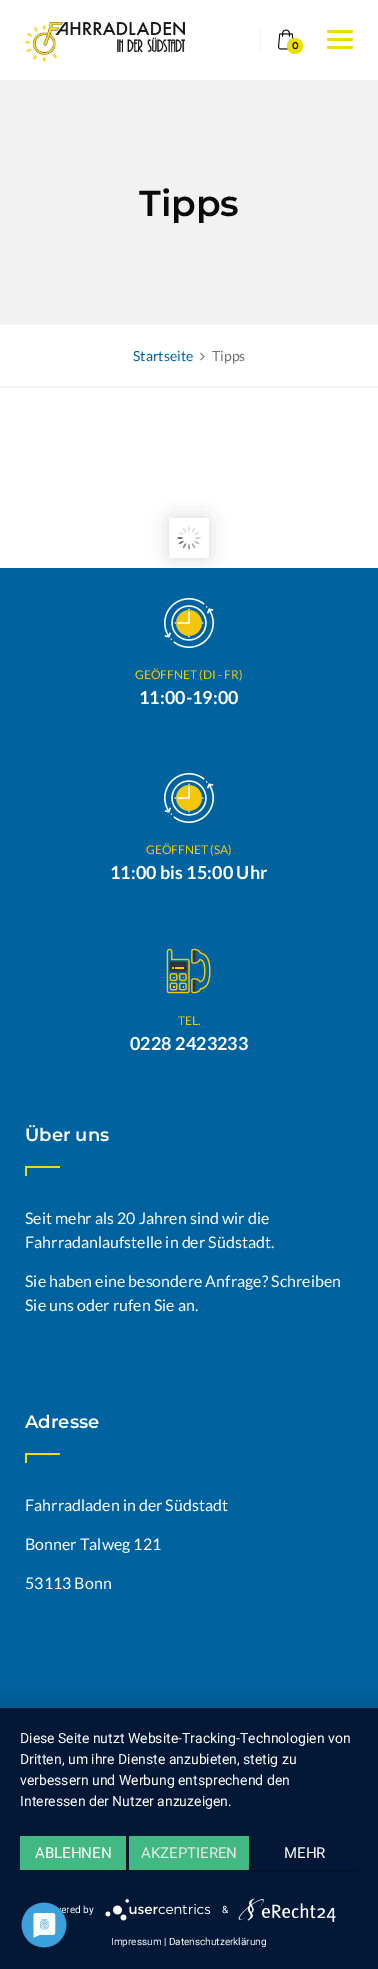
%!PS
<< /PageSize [378 1969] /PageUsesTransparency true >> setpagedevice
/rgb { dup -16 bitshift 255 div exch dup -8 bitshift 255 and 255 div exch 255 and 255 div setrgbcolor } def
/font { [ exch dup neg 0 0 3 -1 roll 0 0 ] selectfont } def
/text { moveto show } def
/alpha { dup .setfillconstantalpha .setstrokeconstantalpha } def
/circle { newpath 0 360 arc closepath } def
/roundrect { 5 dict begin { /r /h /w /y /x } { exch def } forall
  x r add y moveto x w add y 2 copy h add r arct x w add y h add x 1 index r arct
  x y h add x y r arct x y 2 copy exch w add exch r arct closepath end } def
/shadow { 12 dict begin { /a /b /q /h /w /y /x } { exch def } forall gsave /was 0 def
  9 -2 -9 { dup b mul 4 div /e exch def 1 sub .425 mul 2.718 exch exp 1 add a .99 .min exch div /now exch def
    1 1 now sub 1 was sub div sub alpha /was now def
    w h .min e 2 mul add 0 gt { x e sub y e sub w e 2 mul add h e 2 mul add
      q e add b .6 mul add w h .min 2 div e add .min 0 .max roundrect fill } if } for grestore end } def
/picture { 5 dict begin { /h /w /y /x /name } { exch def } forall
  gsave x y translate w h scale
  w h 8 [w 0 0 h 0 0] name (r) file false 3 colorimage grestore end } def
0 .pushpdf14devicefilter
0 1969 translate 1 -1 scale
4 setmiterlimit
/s1 { /Montserrat-SemiBold 10 font 16#0A0003 rgb } def
/s2 { /Montserrat-SemiBold 36 font 16#0A0A0A rgb } def
/s3 { /Lato-Regular 14 font 16#0063A0 rgb } def
/s4 { /Lato-Regular 14 font 16#707070 rgb } def
/s5 { /Lato-Regular 12 font 16#F4C70B rgb } def
/s6 { /Lato-Bold 18 font 16#FFFFFF rgb } def
/s7 { /Montserrat-SemiBold 18 font 16#FFFFFF rgb } def
/s8 { /Lato-Regular 16 font 16#FFFFFF rgb } def
/s9 { /Roboto-Regular 14 font 16#FFFFFF rgb } def
/s10 { /Roboto-Regular 15 font 16#FFFFFF rgb } def
/s11 { /Roboto-Regular 15 font 16#E6E6E6 rgb } def
/s12 { /Roboto-Regular 10 font 16#FFFFFF rgb } def
16#FFFFFF rgb
0 0 378 1969 rectfill
(pic1.raw) 25 22 160 40 picture
16#F2F2F2 rgb
260 28 1 24 rectfill
(pic2.raw) 278 29 16 21 picture
16#EDDE0B rgb
295 46 8 circle fill
s1
(0) 292 49 text
16#EDDE0B rgb
327 30 26 3 1.5 roundrect fill
327 38 26 3 1.5 roundrect fill
327 46 26 3 1.5 roundrect fill
16#F2F2F2 rgb
0 80 378 245 rectfill
s2
(Tipps) 139 216 text
16#F2F2F2 rgb
0 386 378 2 rectfill
s3
(Startseite) 133 361 text
(pic3.raw) 200 352 5 9 picture
s4
(Tipps) 212 361 text
16#000000 rgb
169 518 40 40 3 10 0.15 shadow
16#FFFFFF rgb
169 518 40 40 3 roundrect fill
(pic4.raw) 177 526 24 24 picture
16#0063A0 rgb
0 568 378 1140 rectfill
(pic5.raw) 164 598 50 50 picture
s5
(GEÖFFNET \(DI - FR\)) 135 679 text
s6
(11:00-19:00) 139 704 text
(pic5.raw) 164 773 50 50 picture
s5
(GEÖFFNET \(SA\)) 146 854 text
s6
(11:00 bis 15:00 Uhr) 110 879 text
(pic6.raw) 166 948 45 46 picture
s5
(TEL.) 178 1025 text
s6
(0228 2423233) 130 1050 text
s7
(Über uns) 25 1141 text
16#EDDE0B rgb
25 1166 35 2 rectfill
25 1166 2 10 rectfill
s8
(Seit mehr als 20 Jahren sind wir die) 25 1224 text
(Fahrradanlaufstelle in der Südstadt.) 25 1248 text
(Sie haben eine besondere Anfrage? Schreiben) 25 1287 text
(Sie uns oder rufen Sie an.) 25 1311 text
s7
(Adresse) 25 1428 text
16#EDDE0B rgb
25 1453 35 2 rectfill
25 1453 2 10 rectfill
s8
(Fahrradladen in der Südstadt) 25 1511 text
(Bonner Talweg 121) 25 1550 text
(53113 Bonn) 25 1589 text
16#000000 rgb
0 1714 378 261 0 18 0.3 shadow
16#021836 rgb
0 1708 378 261 rectfill
s9
(Diese Seite nutzt Website-Tracking-Technologien von) 20 1743 text
(Dritten, um ihre Dienste anzubieten, stetig zu) 20 1764 text
(verbessern und Werbung entsprechend den) 20 1785 text
(Interessen der Nutzer anzuzeigen.) 20 1806 text
gsave
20 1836 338 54 rectclip
16#000000 rgb
20 1837 106 34 0 2 0.4 shadow
grestore
16#42B983 rgb
20 1836 106 34 rectfill
s10
(ABLEHNEN) 35 1858 text
gsave
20 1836 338 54 rectclip
16#000000 rgb
129 1837 120 34 0 2 0.4 shadow
grestore
16#42B983 rgb
129 1836 120 34 rectfill
s11
(AKZEPTIEREN) 141 1858 text
gsave
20 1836 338 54 rectclip
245 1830 moveto 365 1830 lineto 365 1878 lineto 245 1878 lineto closepath 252 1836 moveto 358 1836 lineto 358 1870 lineto 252 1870 lineto closepath eoclip newpath
16#000000 rgb
252 1837 106 34 0 2 0.4 shadow
grestore
s10
(MEHR) 284 1858 text
s12
(ered by) 61 1913 text
(pic7.raw) 105 1899 106 22 picture
(&) 222 1913 text
(pic8.raw) 238 1898 98 24 picture
(Impressum | Datenschutzerklärung) 111 1945 text
(pic9.raw) 21 1902 46 46 picture
.poppdf14devicefilter showpage
